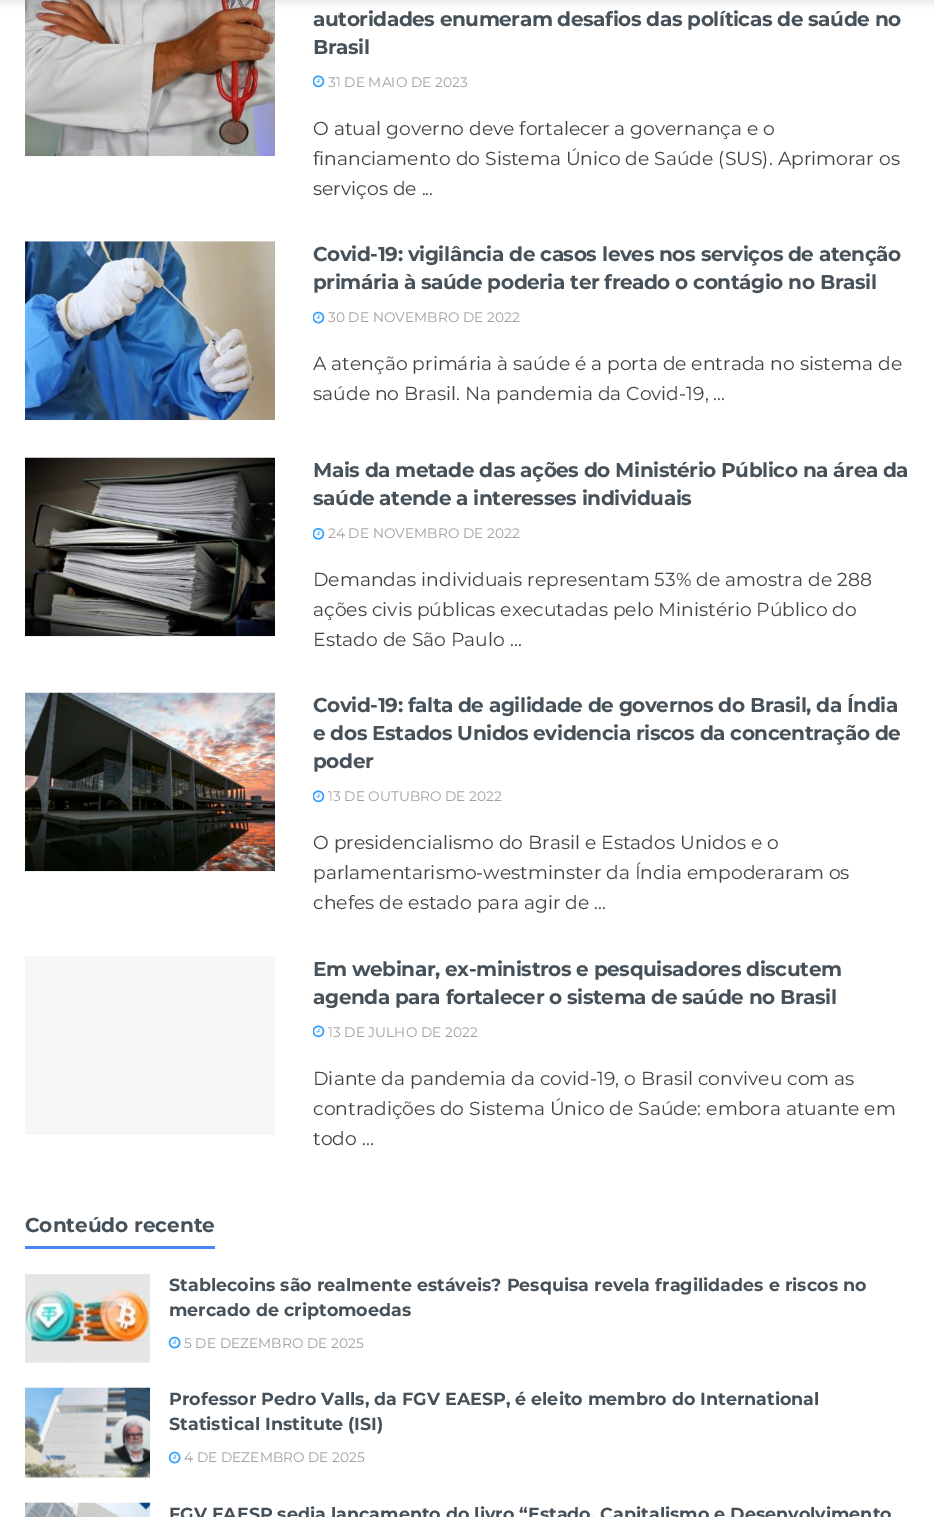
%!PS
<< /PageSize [934 1517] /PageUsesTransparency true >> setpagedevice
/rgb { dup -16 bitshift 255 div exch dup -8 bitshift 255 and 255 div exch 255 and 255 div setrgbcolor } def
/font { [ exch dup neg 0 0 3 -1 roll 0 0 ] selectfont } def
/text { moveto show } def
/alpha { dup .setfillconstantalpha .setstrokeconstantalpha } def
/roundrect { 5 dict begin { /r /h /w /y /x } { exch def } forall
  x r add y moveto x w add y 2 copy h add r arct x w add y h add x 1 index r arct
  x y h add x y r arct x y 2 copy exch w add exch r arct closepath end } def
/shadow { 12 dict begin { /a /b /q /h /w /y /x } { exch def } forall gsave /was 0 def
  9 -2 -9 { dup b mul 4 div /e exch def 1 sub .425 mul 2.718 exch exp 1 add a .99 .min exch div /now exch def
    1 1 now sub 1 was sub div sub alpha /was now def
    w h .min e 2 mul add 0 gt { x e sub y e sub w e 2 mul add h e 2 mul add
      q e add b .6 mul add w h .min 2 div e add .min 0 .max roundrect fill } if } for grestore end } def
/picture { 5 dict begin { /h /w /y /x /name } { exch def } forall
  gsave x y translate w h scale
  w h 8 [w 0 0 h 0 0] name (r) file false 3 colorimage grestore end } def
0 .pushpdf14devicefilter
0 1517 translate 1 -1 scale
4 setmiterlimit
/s1 { /Montserrat-Regular 13.75 font 16#A0A0A0 rgb } def
/s2 { /Montserrat-Regular 18.75 font 16#444444 rgb } def
/s3 { /Montserrat-Bold 20 font 16#47515A rgb } def
/s4 { /Montserrat-Bold 17.5 font 16#47515A rgb } def
16#FFFFFF rgb
0 0 934 1517 rectfill
(pic1.raw) 25 0 250 157 picture
16#000000 rgb
0 -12 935 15 0 4 0.1 shadow
/Montserrat-Bold 20 font
16#47515A rgb
313 26 moveto -0.4 0 (autoridades enumeram desafios das políticas de saúde no) ashow
313 54 moveto -0.4 0 (Brasil) ashow
(pic2.raw) 313 75 12 13 picture
s1
(31 DE MAIO DE 2023) 328 87 text
s2
(O atual governo deve fortalecer a governança e o) 313 135 text
(financiamento do Sistema Único de Saúde \(SUS\). Aprimorar os) 313 165 text
(serviços de ...) 313 195 text
16#F7F7F7 rgb
25 241 250 1 rectfill
(pic4.raw) 88 241 49 1 picture
(pic3.raw) 25 241 250 179 picture
/Montserrat-Bold 20 font
16#47515A rgb
313 261 moveto -0.4 0 (Covid-19: vigilância de casos leves nos serviços de atenção) ashow
313 289 moveto -0.4 0 (primária à saúde poderia ter freado o contágio no Brasil) ashow
(pic5.raw) 313 311 12 13 picture
s1
(30 DE NOVEMBRO DE 2022) 328 322 text
s2
(A atenção primária à saúde é a porta de entrada no sistema de) 313 370 text
(saúde no Brasil. Na pandemia da Covid-19, ...) 313 400 text
(pic7.raw) 88 457 49 1 picture
(pic6.raw) 25 457 250 180 picture
/Montserrat-Bold 20 font
16#47515A rgb
313 477 moveto -0.4 0 (Mais da metade das ações do Ministério Público na área da) ashow
313 505 moveto -0.4 0 (saúde atende a interesses individuais) ashow
(pic8.raw) 313 527 12 13 picture
s1
(24 DE NOVEMBRO DE 2022) 328 538 text
s2
(Demandas individuais representam 53% de amostra de 288) 313 586 text
(ações civis públicas executadas pelo Ministério Público do) 313 616 text
(Estado de São Paulo ...) 313 646 text
(pic7.raw) 88 692 49 1 picture
(pic9.raw) 25 692 250 180 picture
/Montserrat-Bold 20 font
16#47515A rgb
313 712 moveto -0.4 0 (Covid-19: falta de agilidade de governos do Brasil, da Índia) ashow
313 740 moveto -0.4 0 (e dos Estados Unidos evidencia riscos da concentração de) ashow
313 768 moveto -0.4 0 (poder) ashow
(pic2.raw) 313 790 12 13 picture
s1
(13 DE OUTUBRO DE 2022) 328 801 text
s2
(O presidencialismo do Brasil e Estados Unidos e o) 313 849 text
(parlamentarismo-westminster da Índia empoderaram os) 313 879 text
(chefes de estado para agir de ...) 313 909 text
16#F7F7F7 rgb
25 956 250 179 rectfill
/Montserrat-Bold 20 font
16#47515A rgb
313 976 moveto -0.4 0 (Em webinar, ex-ministros e pesquisadores discutem) ashow
313 1004 moveto -0.4 0 (agenda para fortalecer o sistema de saúde no Brasil) ashow
(pic2.raw) 313 1025 12 13 picture
s1
(13 DE JULHO DE 2022) 328 1037 text
s2
(Diante da pandemia da covid-19, o Brasil conviveu com as) 313 1085 text
(contradições do Sistema Único de Saúde: embora atuante em) 313 1115 text
(todo ...) 313 1145 text
16#4886FF rgb
25 1246 190 3 rectfill
s3
(Conteúdo recente) 25 1232 text
16#F7F7F7 rgb
25 1361 125 2 rectfill
(pic11.raw) 56 1361 25 2 picture
(pic10.raw) 25 1274 125 89 picture
s4
(Stablecoins são realmente estáveis? Pesquisa revela fragilidades e riscos no) 169 1291 text
(mercado de criptomoedas) 169 1316 text
(pic12.raw) 168 1336 13 13 picture
s1
(5 DE DEZEMBRO DE 2025) 184 1348 text
16#F7F7F7 rgb
25 1476 125 2 rectfill
(pic14.raw) 56 1387 25 91 picture
(pic13.raw) 25 1387 125 91 picture
s4
(Professor Pedro Valls, da FGV EAESP, é eleito membro do International) 169 1405 text
(Statistical Institute \(ISI\)) 169 1430 text
(pic12.raw) 168 1451 13 13 picture
s1
(4 DE DEZEMBRO DE 2025) 184 1462 text
(pic16.raw) 56 1502 25 1 picture
(pic15.raw) 25 1502 125 15 picture
s4
(FGV EAESP sedia lançamento do livro “Estado, Capitalismo e Desenvolvimento) 169 1520 text
.poppdf14devicefilter showpage
